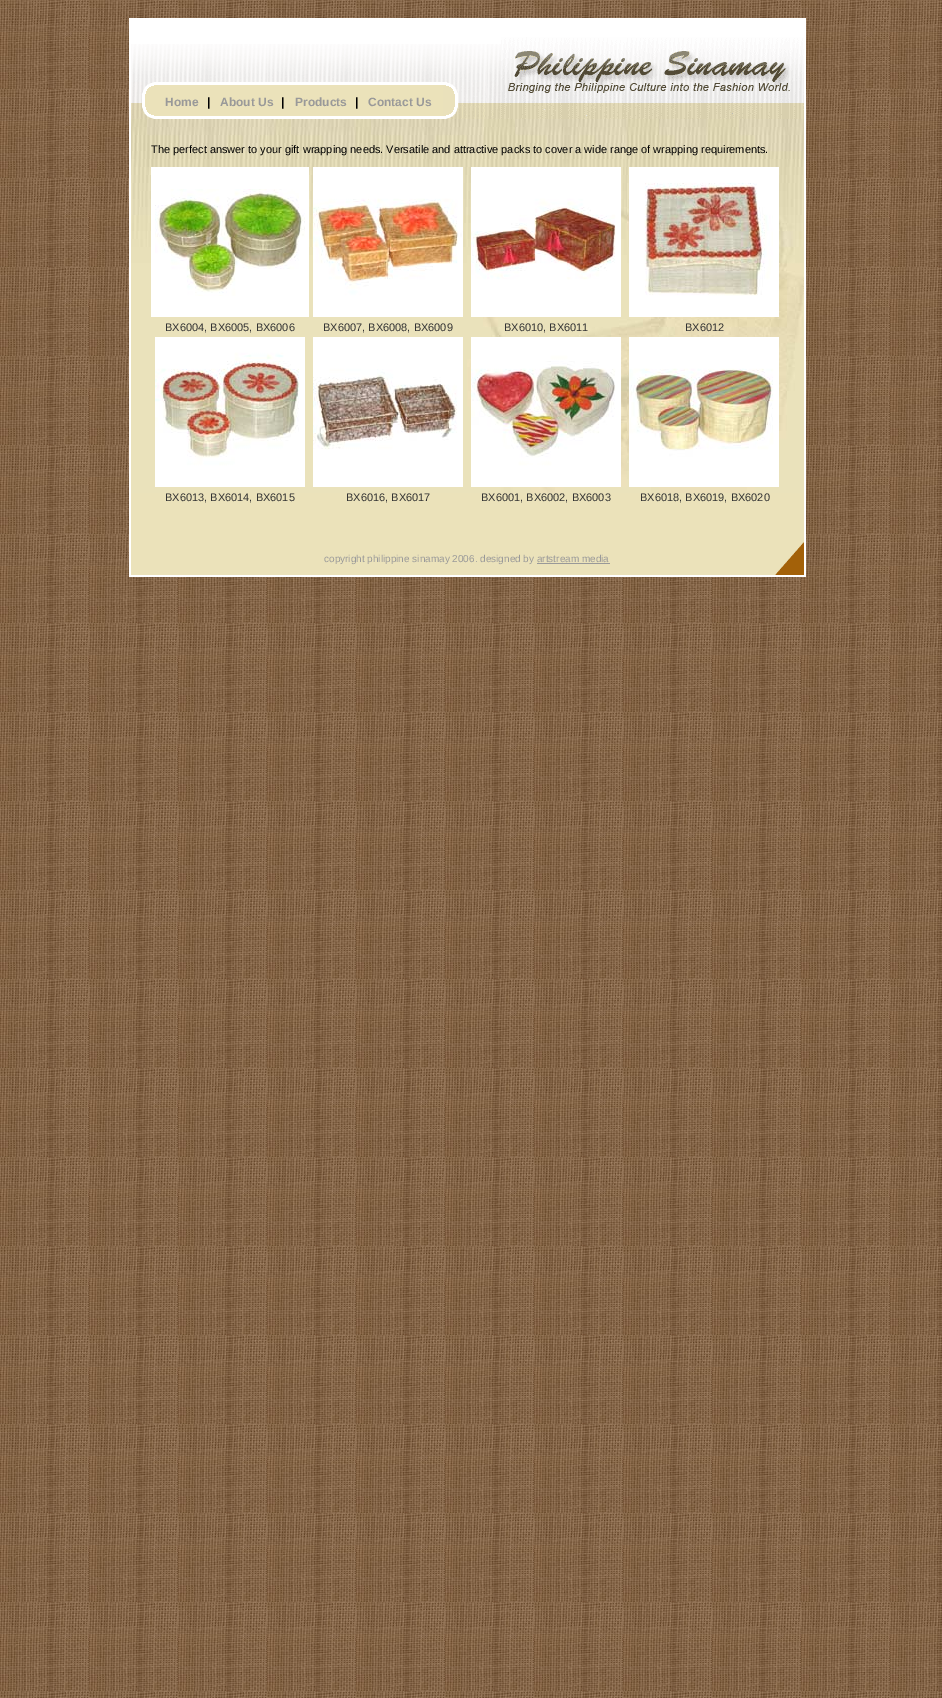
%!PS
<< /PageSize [942 1698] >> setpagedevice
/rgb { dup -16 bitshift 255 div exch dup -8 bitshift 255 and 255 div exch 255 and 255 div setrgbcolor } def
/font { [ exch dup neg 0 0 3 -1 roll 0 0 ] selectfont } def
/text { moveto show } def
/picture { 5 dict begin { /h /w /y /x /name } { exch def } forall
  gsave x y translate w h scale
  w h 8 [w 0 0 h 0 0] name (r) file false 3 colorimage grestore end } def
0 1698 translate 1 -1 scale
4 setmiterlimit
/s1 { /LiberationSans-Bold 12 font 16#999999 rgb } def
/s2 { /LiberationSans-Bold 12 font 16#000000 rgb } def
/s3 { /LiberationSans-Regular 11 font 16#000000 rgb } def
/s4 { /LiberationSans-Regular 11 font 16#333333 rgb } def
/s5 { /LiberationSans-Regular 10 font 16#999999 rgb } def
16#FFFFFF rgb
0 0 942 1698 rectfill
(pic1.raw) 0 0 942 1698 picture
129 18 677 559 rectfill
(pic2.raw) 131 44 370 38 picture
(pic3.raw) 501 37 303 82 picture
(pic4.raw) 131 82 11 37 picture
(pic5.raw) 142 82 13 37 picture
16#EBE2BA rgb
155 85 288 31 rectfill
s1
(Home) 165 106 text
s2
(|) 207 106 text
s1
(About Us) 220 106 text
s2
(|) 281 106 text
s1
(Products) 295 106 text
s2
(|) 355 106 text
s1
(Contact Us) 368 106 text
(pic6.raw) 443 82 58 37 picture
16#EBE2BA rgb
131 493 673 49 rectfill
(pic7.raw) 131 119 673 374 picture
s3
(The perfect answer to your gift wrapping needs. Versatile and attractive packs to cover a wide range of wrapping requirements.) 151 153 text
16#FFFFFF rgb
151 167 158 150 rectfill
(pic8.raw) 155 189 150 107 picture
(pic9.raw) 313 167 150 150 picture
(pic10.raw) 471 167 150 150 picture
(pic11.raw) 629 167 150 150 picture
s4
(BX6004, BX6005, BX6006) 165 331 text
(BX6007, BX6008, BX6009) 323 331 text
(BX6010, BX6011) 504 331 text
(BX6012) 685 331 text
(pic12.raw) 155 337 150 150 picture
(pic13.raw) 313 337 150 150 picture
(pic14.raw) 471 337 150 150 picture
(pic15.raw) 629 337 150 150 picture
(BX6013, BX6014, BX6015) 165 501 text
(BX6016, BX6017) 346 501 text
(BX6001, BX6002, BX6003) 481 501 text
(BX6018, BX6019, BX6020) 640 501 text
(pic16.raw) 131 542 673 33 picture
s5
(copyright philippine sinamay 2006. designed by artstream media) 324 562 text
537 563 73 1 rectfill
showpage
